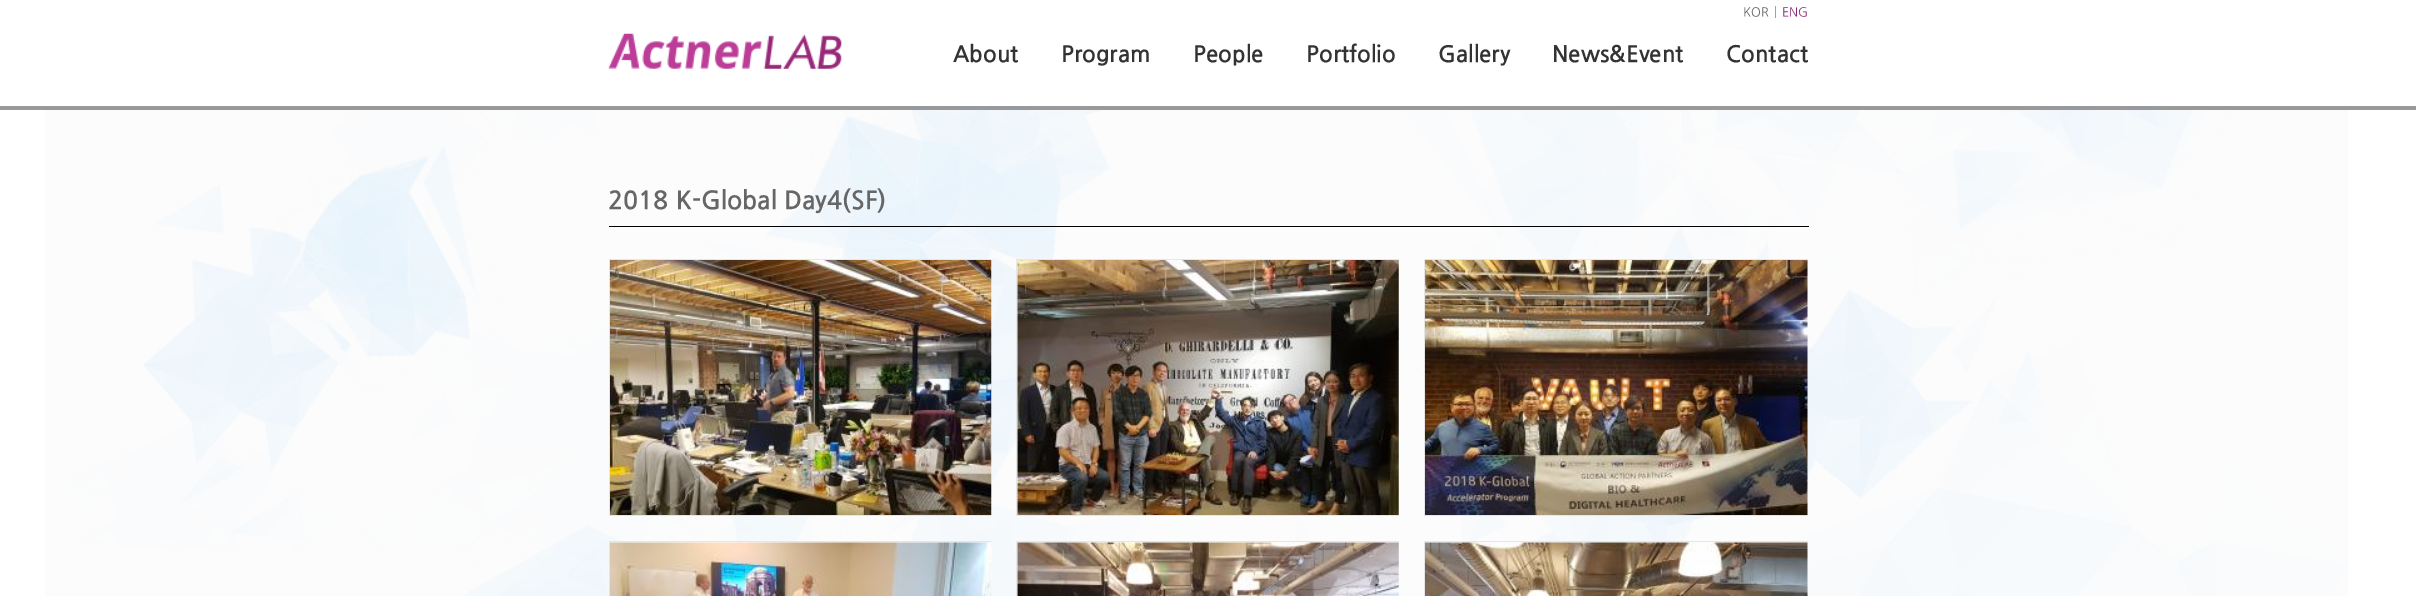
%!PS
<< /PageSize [2416 596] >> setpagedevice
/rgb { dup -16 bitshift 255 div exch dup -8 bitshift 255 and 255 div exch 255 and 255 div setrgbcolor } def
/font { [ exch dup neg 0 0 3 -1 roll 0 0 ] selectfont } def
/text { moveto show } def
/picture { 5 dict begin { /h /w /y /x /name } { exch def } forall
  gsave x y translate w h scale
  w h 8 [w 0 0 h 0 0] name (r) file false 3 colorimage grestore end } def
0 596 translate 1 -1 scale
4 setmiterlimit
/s1 { /NanumGothic-Regular 12.5 font 16#666666 rgb } def
/s2 { /NanumGothic-Regular 12.5 font 16#882776 rgb } def
/s3 { /NanumGothic-Bold 22.5 font 16#333333 rgb } def
/s4 { /NanumGothic-Bold 25 font 16#666666 rgb } def
16#FFFFFF rgb
0 0 2416 596 rectfill
(pic1.raw) 45 110 2303 486 picture
16#A0A0A0 rgb
1775 6 1 12 rectfill
s1
(KOR) 1743 16 text
s2
(ENG) 1782 16 text
(pic2.raw) 608 33 234 36 picture
s3
(About) 953 61 text
(Program) 1061 61 text
(People) 1193 61 text
(Portfolio) 1306 61 text
(Gallery) 1438 61 text
(News&Event) 1552 61 text
(Contact) 1726 61 text
16#999999 rgb
0 106 2416 4 rectfill
16#000000 rgb
609 226 1200 1 rectfill
s4
(2018 K-Global Day4\(SF\)) 608 208 text
gsave
609 259 382 257 rectclip
16#E6E6E6 rgb
609.5 259.5 384 256 rectstroke
grestore
(pic3.raw) 610 260 382 255 picture
gsave
1016 259 383 257 rectclip
16#E6E6E6 rgb
1016.5 259.5 384 256 rectstroke
grestore
(pic4.raw) 1017 260 382 255 picture
gsave
1424 259 384 257 rectclip
16#E6E6E6 rgb
1424.5 259.5 385 256 rectstroke
grestore
(pic5.raw) 1425 260 383 255 picture
gsave
609 541 382 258 rectclip
16#E6E6E6 rgb
609.5 541.5 384 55 rectstroke
grestore
(pic6.raw) 610 542 382 54 picture
gsave
1016 541 383 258 rectclip
16#E6E6E6 rgb
1016.5 541.5 384 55 rectstroke
grestore
(pic7.raw) 1017 542 382 54 picture
gsave
1424 541 384 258 rectclip
16#E6E6E6 rgb
1424.5 541.5 385 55 rectstroke
grestore
(pic8.raw) 1425 542 383 54 picture
showpage
